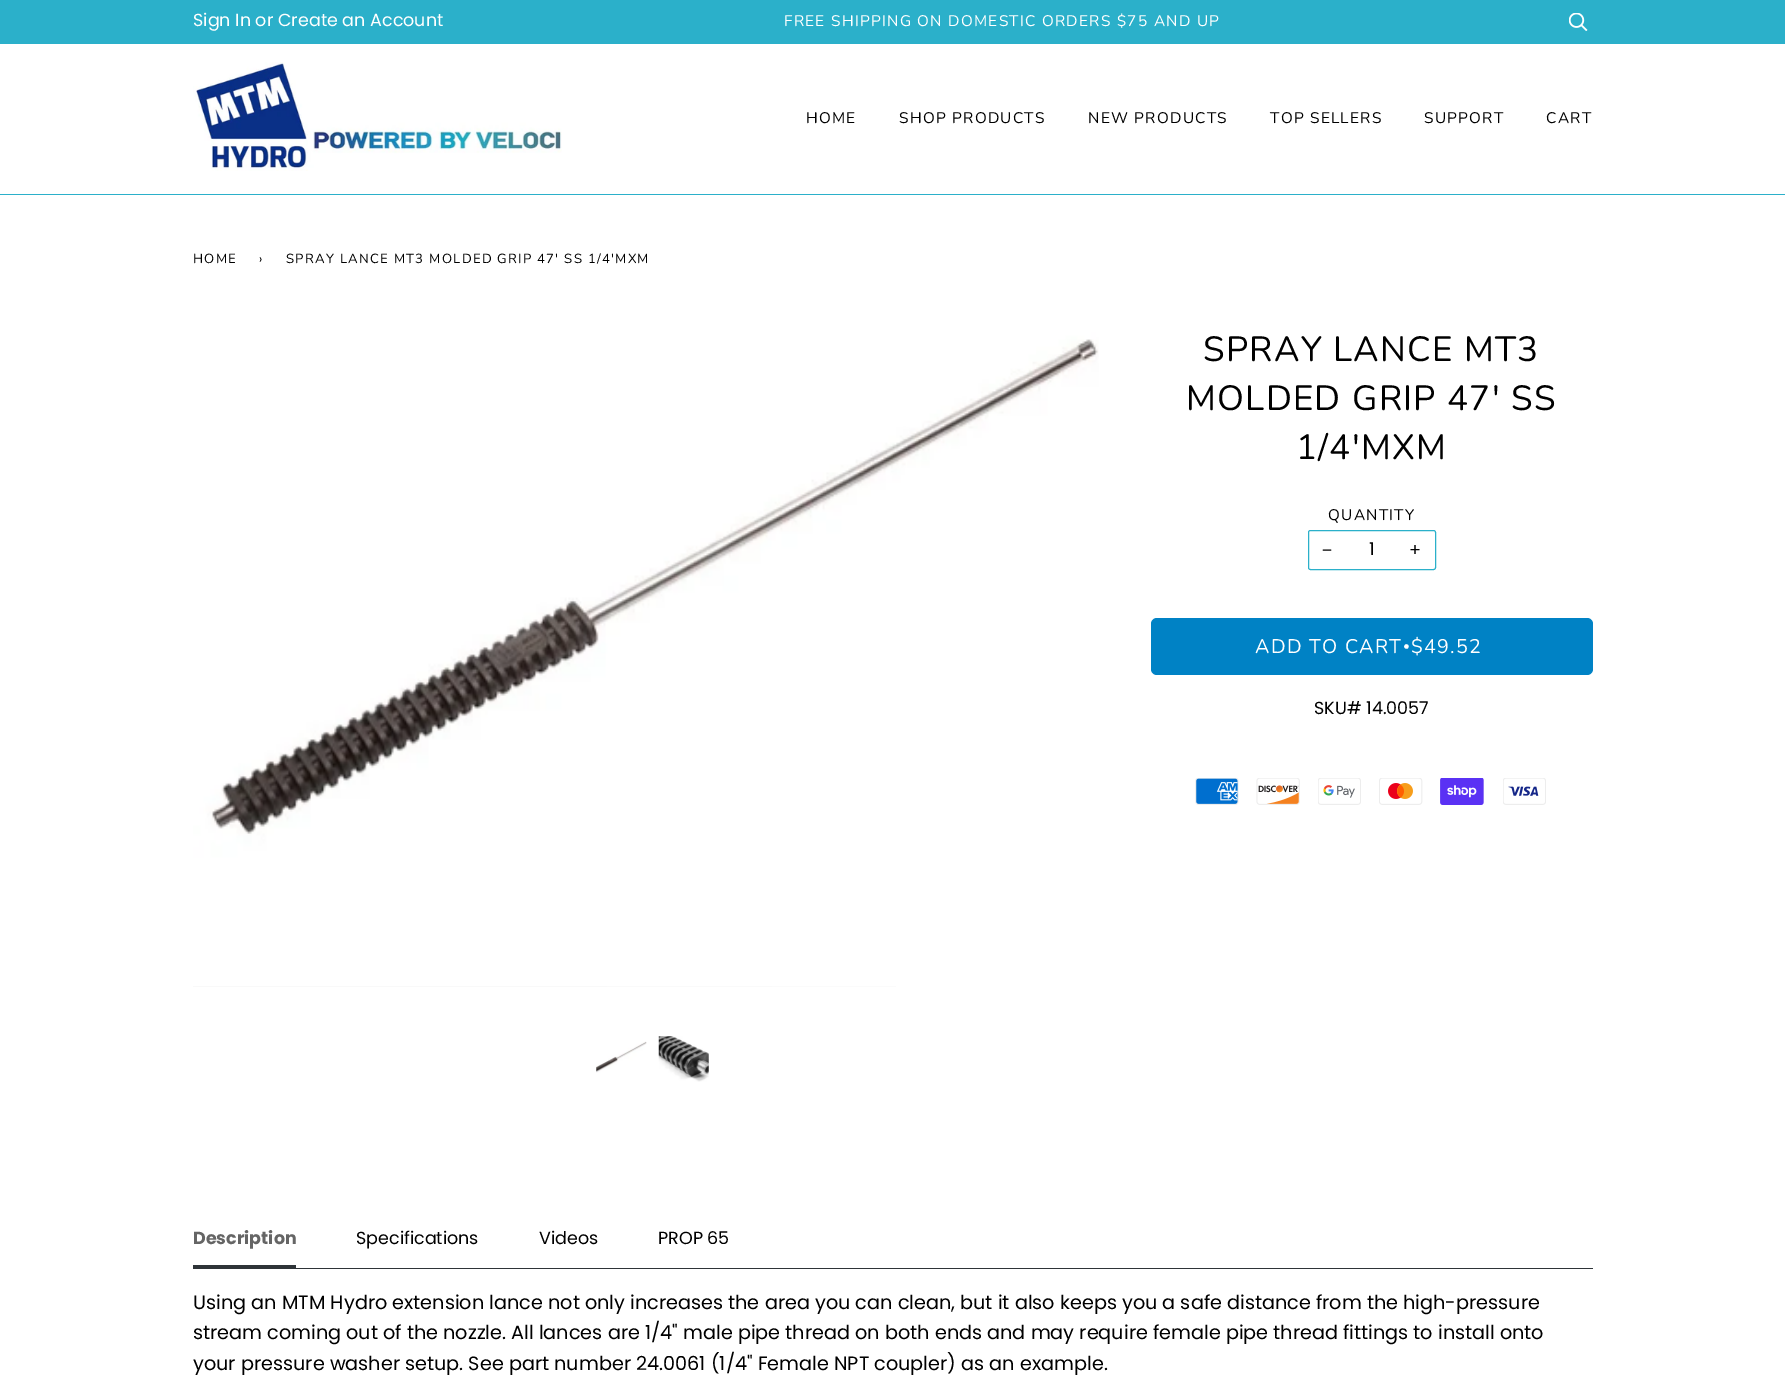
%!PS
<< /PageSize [1785 1379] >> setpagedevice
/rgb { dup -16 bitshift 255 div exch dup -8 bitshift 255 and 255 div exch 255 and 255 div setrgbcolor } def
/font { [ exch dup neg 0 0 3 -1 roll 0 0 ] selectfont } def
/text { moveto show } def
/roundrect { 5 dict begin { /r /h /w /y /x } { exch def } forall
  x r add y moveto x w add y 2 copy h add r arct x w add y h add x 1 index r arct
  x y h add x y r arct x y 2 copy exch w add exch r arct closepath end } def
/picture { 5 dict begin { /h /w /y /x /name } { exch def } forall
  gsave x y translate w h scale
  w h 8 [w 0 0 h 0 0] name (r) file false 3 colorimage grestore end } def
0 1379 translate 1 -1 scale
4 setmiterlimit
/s1 { /Poppins-Regular 17.5 font 16#FFFFFF rgb } def
/s2 { /LiberationSans-Regular 17.5 font 16#000000 rgb } def
/s3 { /Poppins-Regular 17.5 font 16#000000 rgb } def
/s4 { /Poppins-Bold 17.5 font 16#656565 rgb } def
/s5 { /Poppins-Regular 19.25 font 16#000000 rgb } def
16#FFFFFF rgb
0 0 1785 1379 rectfill
16#2BB0CA rgb
0 0 1785 44 rectfill
s1
(Sign In or Create an Account) 193 26 text
/Nunito-Regular 15.4 font
784 26 moveto 1.25 0 (FREE SHIPPING ON DOMESTIC ORDERS $75 AND UP) ashow
(pic1.raw) 1569 13 19 18 picture
16#2BB0CA rgb
0 194 1785 1 rectfill
(pic2.raw) 193 62 369 109 picture
16#000000 rgb
806 123 moveto 1.25 0 (HOME) ashow
899 123 moveto 1.25 0 (SHOP PRODUCTS) ashow
1088 123 moveto 1.25 0 (NEW PRODUCTS) ashow
1270 123 moveto 1.25 0 (TOP SELLERS) ashow
1424 123 moveto 1.25 0 (SUPPORT) ashow
1546 123 moveto 1.25 0 (CART) ashow
/Nunito-Regular 13.2 font
193 263 moveto 1.25 0 (HOME) ashow
259 263 moveto 1.25 0 (›) ashow
286 263 moveto 1.25 0 (SPRAY LANCE MT3 MOLDED GRIP 47' SS 1/4'MXM) ashow
(pic3.raw) 193 986 703 1 picture
(pic4.raw) 193 325 906 661 picture
(pic5.raw) 596 1041 51 32 picture
(pic6.raw) 658 1036 51 46 picture
/Nunito-Regular 35 font
1203 361 moveto 1.25 0 (SPRAY LANCE MT3) ashow
1186 410 moveto 1.25 0 (MOLDED GRIP 47' SS) ashow
1296 459 moveto 1.25 0 (1/4'MXM) ashow
/Nunito-Regular 15.4 font
1328 520 moveto 1.25 0 (QUANTITY) ashow
16#2BB0CA rgb
1308.5 530.5 127 39 2 roundrect stroke
s2
(−) 1322 556 text
s3
(1) 1369 555 text
(+) 1409 556 text
16#0082C5 rgb
1151 618 442 57 6 roundrect fill
/Nunito-Regular 19.75 font
16#FFFFFF rgb
1255 653 moveto 1.25 0 (ADD TO CART) ashow
/LiberationSerif-Regular 19.75 font
1403 653 moveto 1.25 0 (•) ashow
/Nunito-Regular 19.75 font
1411 653 moveto 1.25 0 ($49.52) ashow
s3
(SKU# 14.0057) 1314 714 text
(pic7.raw) 1195 778 44 27 picture
(pic8.raw) 1256 778 44 27 picture
(pic9.raw) 1318 778 43 27 picture
(pic10.raw) 1379 778 44 27 picture
(pic11.raw) 1440 778 44 27 picture
(pic12.raw) 1503 778 43 27 picture
16#2E3438 rgb
193 1265 103 3 rectfill
s4
(Description) 193 1244 text
s3
(Specifications) 356 1244 text
(Videos) 539 1244 text
(PROP 65) 658 1244 text
16#2E3438 rgb
193 1268 1400 1 rectfill
s5
(Using an MTM Hydro extension lance not only increases the area you can clean, but it also keeps you a safe distance from the high-pressure) 193 1309 text
(stream coming out of the nozzle. All lances are 1/4" male pipe thread on both ends and may require female pipe thread fittings to install onto) 193 1339 text
(your pressure washer setup. See part number 24.0061 \(1/4" Female NPT coupler\) as an example.) 193 1370 text
showpage
